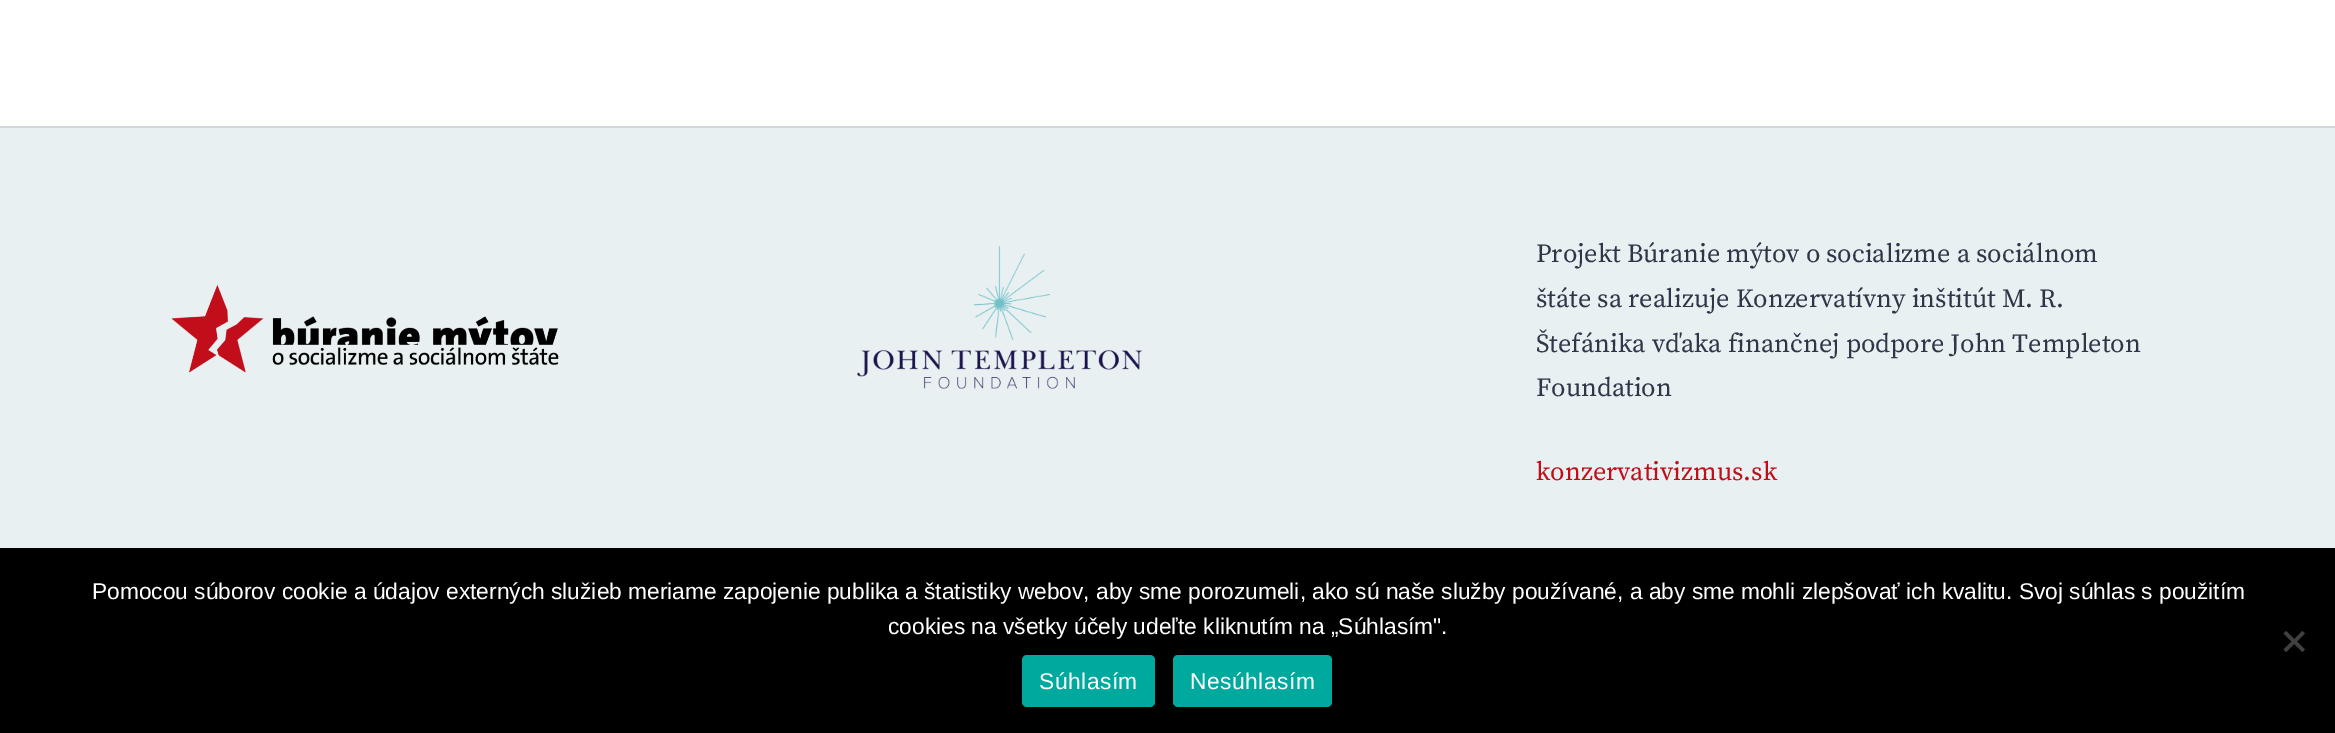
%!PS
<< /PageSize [2335 733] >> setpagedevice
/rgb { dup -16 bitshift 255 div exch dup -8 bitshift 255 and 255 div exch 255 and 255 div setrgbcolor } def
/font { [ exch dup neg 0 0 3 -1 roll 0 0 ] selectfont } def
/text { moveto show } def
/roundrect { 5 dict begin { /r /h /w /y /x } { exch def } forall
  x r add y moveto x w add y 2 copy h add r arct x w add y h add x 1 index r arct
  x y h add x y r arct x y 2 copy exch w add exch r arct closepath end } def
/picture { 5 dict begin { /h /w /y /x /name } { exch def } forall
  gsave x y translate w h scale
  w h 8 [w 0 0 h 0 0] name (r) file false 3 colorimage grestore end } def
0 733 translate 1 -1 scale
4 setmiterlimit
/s1 { /SourceSerifPro-Regular 26.25 font 16#2D3748 rgb } def
/s2 { /SourceSerifPro-Regular 26.25 font 16#C10E1A rgb } def
/s3 { /LiberationSans-Regular 22.75 font 16#FFFFFF rgb } def
16#FFFFFF rgb
0 0 2335 733 rectfill
16#E8F0F2 rgb
0 128 2335 420 rectfill
16#D1D8DA rgb
0 126 2335 2 rectfill
(pic1.raw) 171 285 388 88 picture
(pic2.raw) 857 246 285 143 picture
s1
(Projekt Búranie mýtov o socializme a sociálnom) 1536 262 text
(štáte sa realizuje Konzervatívny inštitút M. R.) 1536 307 text
(Štefánika vďaka finančnej podpore John Templeton) 1536 352 text
(Foundation) 1536 396 text
s2
(konzervativizmus.sk) 1536 480 text
16#000000 rgb
0 548 2335 185 rectfill
s3
(Pomocou súborov cookie a údajov externých služieb meriame zapojenie publika a štatistiky webov, aby sme porozumeli, ako sú naše služby používané, a aby sme mohli zlepšovať ich kvalitu. Svoj súhlas s použitím) 92 599 text
(cookies na všetky účely udeľte kliknutím na „Súhlasím".) 888 634 text
16#404040 rgb
2302.5 631 moveto 2305 633.5 lineto 2286 652 lineto 2283.5 649.5 lineto closepath fill
2283.5 633.5 moveto 2286 631 lineto 2305 649.5 lineto 2302.5 652 lineto closepath fill
16#00A99D rgb
1022 655 133 52 5 roundrect fill
16#FFFFFF rgb
1039 689 moveto 0.5 0 (Súhlasím) ashow
16#00A99D rgb
1173 655 159 52 5 roundrect fill
16#FFFFFF rgb
1190 689 moveto 0.5 0 (Nesúhlasím) ashow
showpage
